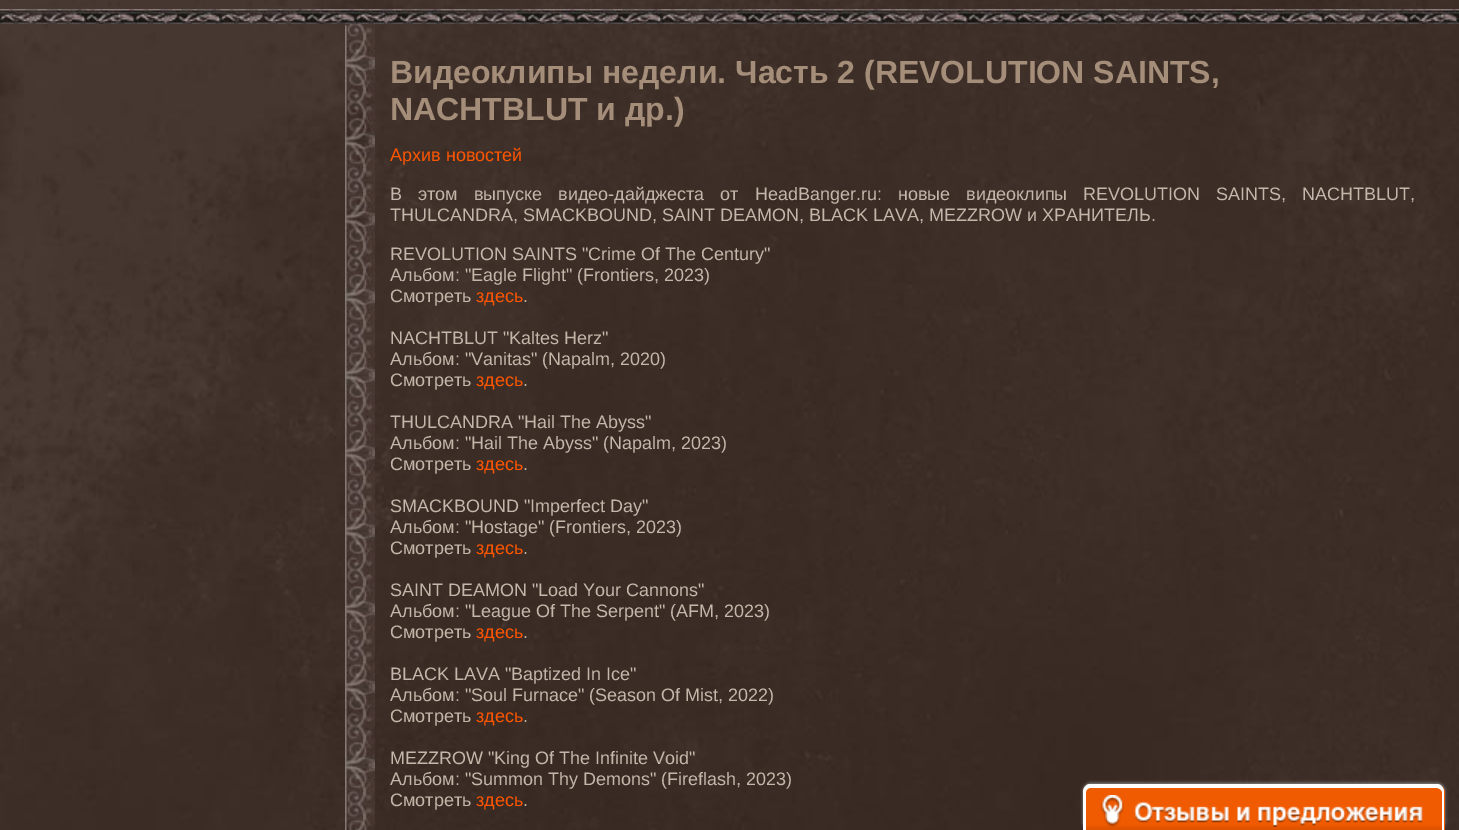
%!PS
<< /PageSize [1459 830] /PageUsesTransparency true >> setpagedevice
/rgb { dup -16 bitshift 255 div exch dup -8 bitshift 255 and 255 div exch 255 and 255 div setrgbcolor } def
/font { [ exch dup neg 0 0 3 -1 roll 0 0 ] selectfont } def
/text { moveto show } def
/alpha { dup .setfillconstantalpha .setstrokeconstantalpha } def
/roundrect { 5 dict begin { /r /h /w /y /x } { exch def } forall
  x r add y moveto x w add y 2 copy h add r arct x w add y h add x 1 index r arct
  x y h add x y r arct x y 2 copy exch w add exch r arct closepath end } def
/shadow { 12 dict begin { /a /b /q /h /w /y /x } { exch def } forall gsave /was 0 def
  9 -2 -9 { dup b mul 4 div /e exch def 1 sub .425 mul 2.718 exch exp 1 add a .99 .min exch div /now exch def
    1 1 now sub 1 was sub div sub alpha /was now def
    w h .min e 2 mul add 0 gt { x e sub y e sub w e 2 mul add h e 2 mul add
      q e add b .6 mul add w h .min 2 div e add .min 0 .max roundrect fill } if } for grestore end } def
/picture { 5 dict begin { /h /w /y /x /name } { exch def } forall
  gsave x y translate w h scale
  w h 8 [w 0 0 h 0 0] name (r) file false 3 colorimage grestore end } def
0 .pushpdf14devicefilter
0 830 translate 1 -1 scale
4 setmiterlimit
/s1 { /LiberationSans-Bold 32 font 16#A48D79 rgb } def
/s2 { /LiberationSans-Regular 18 font 16#FF5500 rgb } def
/s3 { /LiberationSans-Regular 18 font 16#C4B6A9 rgb } def
16#FFFFFF rgb
0 0 1459 830 rectfill
(pic1.raw) 0 0 1459 830 picture
(pic2.raw) 0 9 1459 15 picture
(pic3.raw) 345 24 30 806 picture
s1
(Видеоклипы недели. Часть 2 \(REVOLUTION SAINTS,) 390 83 text
(NACHTBLUT и др.\)) 390 120 text
s2
(Архив новостей) 390 161 text
16#C4B6A9 rgb
390 200 moveto 11 0 32 (В этом выпуске видео-дайджеста от HeadBanger.ru: новые видеоклипы REVOLUTION SAINTS, NACHTBLUT,) widthshow
(THULCANDRA, SMACKBOUND, SAINT DEAMON, BLACK LAVA, MEZZROW и ХРАНИТЕЛЬ.) 390 221 text
(REVOLUTION SAINTS "Crime Of The Century") 390 260 text
(Альбом: "Eagle Flight" \(Frontiers, 2023\)) 390 281 text
(Смотреть) 390 302 text
s2
(здесь) 476 302 text
s3
(.) 523 302 text
(NACHTBLUT "Kaltes Herz") 390 344 text
(Альбом: "Vanitas" \(Napalm, 2020\)) 390 365 text
(Смотреть) 390 386 text
s2
(здесь) 476 386 text
s3
(.) 523 386 text
(THULCANDRA "Hail The Abyss") 390 428 text
(Альбом: "Hail The Abyss" \(Napalm, 2023\)) 390 449 text
(Смотреть) 390 470 text
s2
(здесь) 476 470 text
s3
(.) 523 470 text
(SMACKBOUND "Imperfect Day") 390 512 text
(Альбом: "Hostage" \(Frontiers, 2023\)) 390 533 text
(Смотреть) 390 554 text
s2
(здесь) 476 554 text
s3
(.) 523 554 text
(SAINT DEAMON "Load Your Cannons") 390 596 text
(Альбом: "League Of The Serpent" \(AFM, 2023\)) 390 617 text
(Смотреть) 390 638 text
s2
(здесь) 476 638 text
s3
(.) 523 638 text
(BLACK LAVA "Baptized In Ice") 390 680 text
(Альбом: "Soul Furnace" \(Season Of Mist, 2022\)) 390 701 text
(Смотреть) 390 722 text
s2
(здесь) 476 722 text
s3
(.) 523 722 text
(MEZZROW "King Of The Infinite Void") 390 764 text
(Альбом: "Summon Thy Demons" \(Fireflash, 2023\)) 390 785 text
(Смотреть) 390 806 text
s2
(здесь) 476 806 text
s3
(.) 523 806 text
16#888888 rgb
1083 783 362 47 8 1.5 1 shadow
16#F05A00 rgb
1091 785 moveto 1437 785 lineto 1441.5 785 1445 788.5 1445 793 curveto 1445 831 lineto 1083 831 lineto 1083 793 lineto 1083 788.5 1086.5 785 1091 785 curveto closepath fill
(pic4.raw) 1086 825 356 5 picture
16#FFFFFF rgb
1090 784 moveto 1437 784 lineto 1441 784 1444 788 1444 792 curveto 1444 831 lineto 1083 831 lineto 1083 792 lineto 1083 788 1086 784 1090 784 curveto closepath 1090 788 moveto 1437 788 lineto 1439 788 1442 790 1442 792 curveto 1442 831 lineto 1086 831 lineto 1086 792 lineto 1086 790 1088 788 1090 788 curveto closepath eofill
(pic5.raw) 1101 795 322 32 picture
.poppdf14devicefilter showpage
